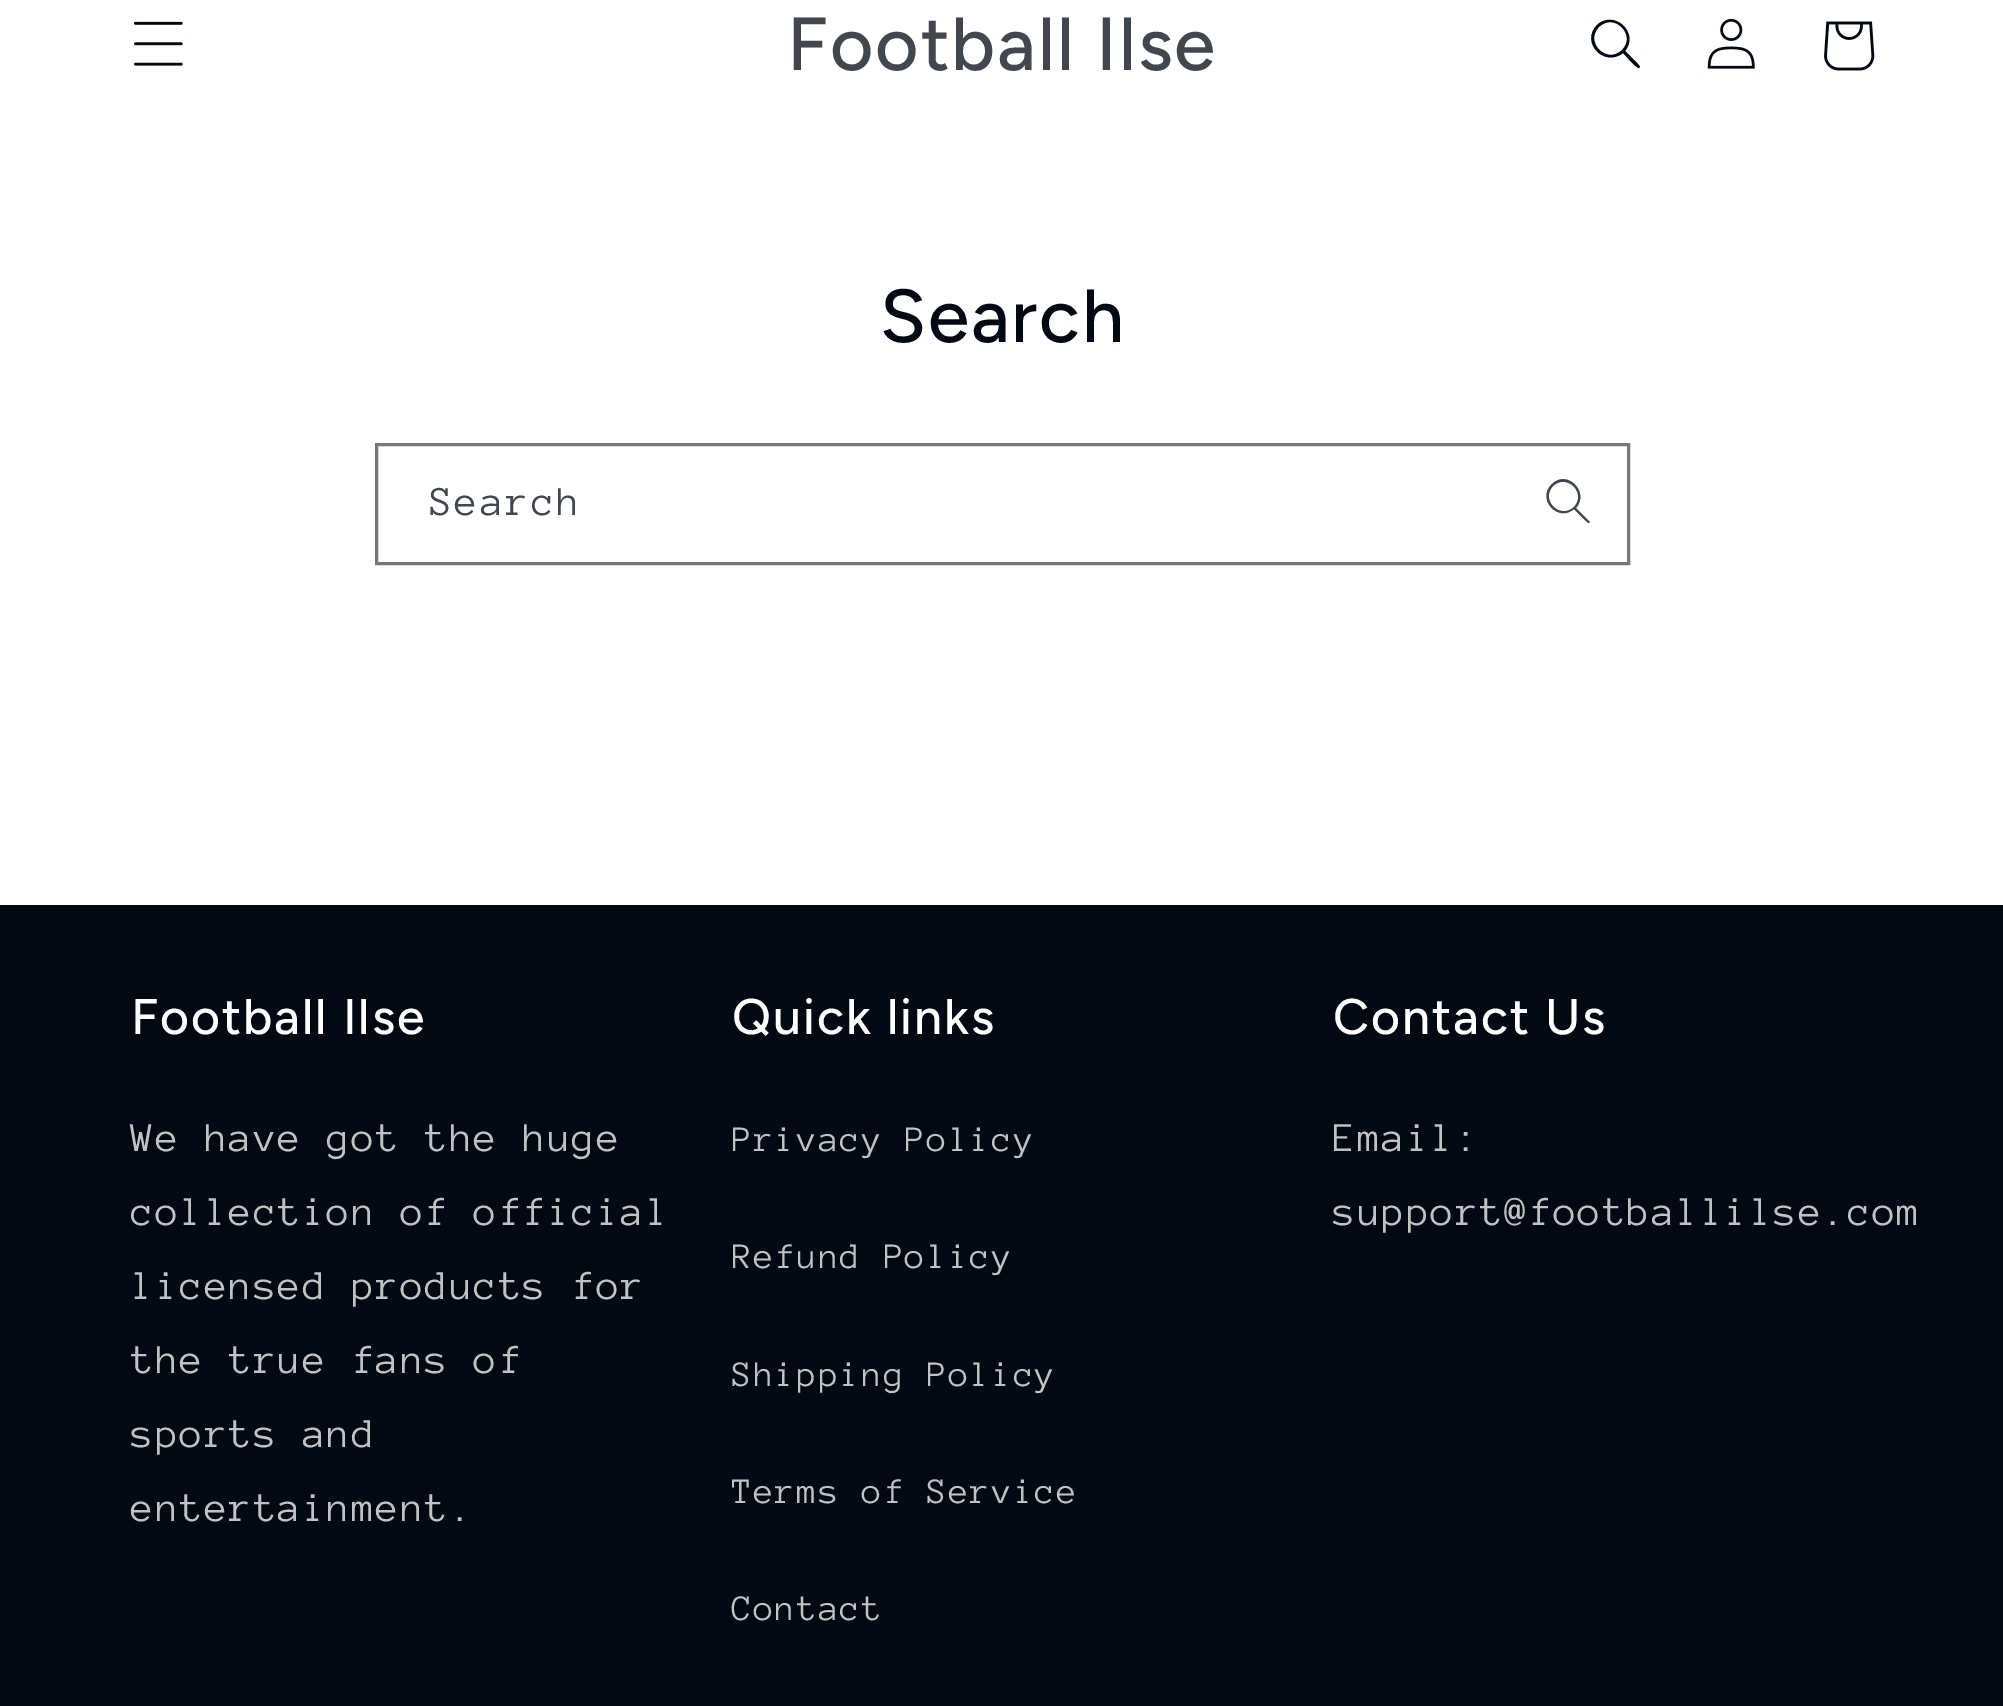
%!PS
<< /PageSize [2003 1706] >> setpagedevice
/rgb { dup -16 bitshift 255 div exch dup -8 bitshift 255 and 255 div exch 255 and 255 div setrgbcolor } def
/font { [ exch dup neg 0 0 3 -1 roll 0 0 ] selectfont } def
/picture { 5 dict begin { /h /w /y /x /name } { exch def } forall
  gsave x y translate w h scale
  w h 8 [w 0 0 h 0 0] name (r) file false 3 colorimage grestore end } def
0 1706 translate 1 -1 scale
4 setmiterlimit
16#FFFFFF rgb
0 0 2003 1706 rectfill
(pic1.raw) 134 21 49 45 picture
/Figtree-Medium 75 font
16#41474D rgb
787 70 moveto 1.9 0 (Football Ilse) ashow
16#020912 rgb
1622 50 moveto 1607 65 1584 42 1599 27 curveto 1614 12 1637 35 1622 50 curveto closepath 1623 53 moveto 1604 68 1580 42 1597 25 curveto 1614 9 1640 33 1625 51 curveto 1627 53 1640 65 1640 67 curveto 1639 68 lineto 1637 69 1625 55 1623 53 curveto closepath eofill
(pic2.raw) 1707 18 48 51 picture
(pic3.raw) 1824 21 51 50 picture
880 342 moveto 1.9 0 (Search) ashow
16#41474D rgb
1574 507 moveto 1560 520 1540 500 1553 486 curveto 1567 473 1587 493 1574 507 curveto closepath 1574 509 moveto 1558 523 1536 499 1552 484 curveto 1567 469 1590 492 1576 508 curveto 1590 522 lineto 1589 523 lineto 1588 524 1576 511 1574 509 curveto closepath eofill
16#74787D rgb
3 setlinewidth
376.5 444.5 1252 119 rectstroke
/AnonymousPro-Regular 42 font
16#41474D rgb
430 515 moveto 2.5 0 (Search) ashow
16#020912 rgb
0 905 2003 801 rectfill
/Figtree-Medium 50 font
16#FFFFFF rgb
131 1034 moveto 1.9 0 (Football Ilse) ashow
/AnonymousPro-Regular 42 font
16#C0C2C4 rgb
131 1151 moveto 1.6 0 (We have got the huge) ashow
131 1225 moveto 1.6 0 (collection of official) ashow
131 1299 moveto 1.6 0 (licensed products for) ashow
131 1373 moveto 1.6 0 (the true fans of) ashow
131 1447 moveto 1.6 0 (sports and) ashow
131 1521 moveto 1.6 0 (entertainment.) ashow
/Figtree-Medium 50 font
16#FFFFFF rgb
732 1034 moveto 1.9 0 (Quick links) ashow
/AnonymousPro-Regular 36.75 font
16#C0C2C4 rgb
732 1151 moveto 1.6 0 (Privacy Policy) ashow
732 1268 moveto 1.6 0 (Refund Policy) ashow
732 1386 moveto 1.6 0 (Shipping Policy) ashow
732 1503 moveto 1.6 0 (Terms of Service) ashow
732 1620 moveto 1.6 0 (Contact) ashow
/Figtree-Medium 50 font
16#FFFFFF rgb
1333 1034 moveto 1.9 0 (Contact Us) ashow
/AnonymousPro-Regular 42 font
16#C0C2C4 rgb
1333 1151 moveto 1.6 0 (Email:) ashow
1333 1225 moveto 1.6 0 (support@footballilse.com) ashow
showpage
